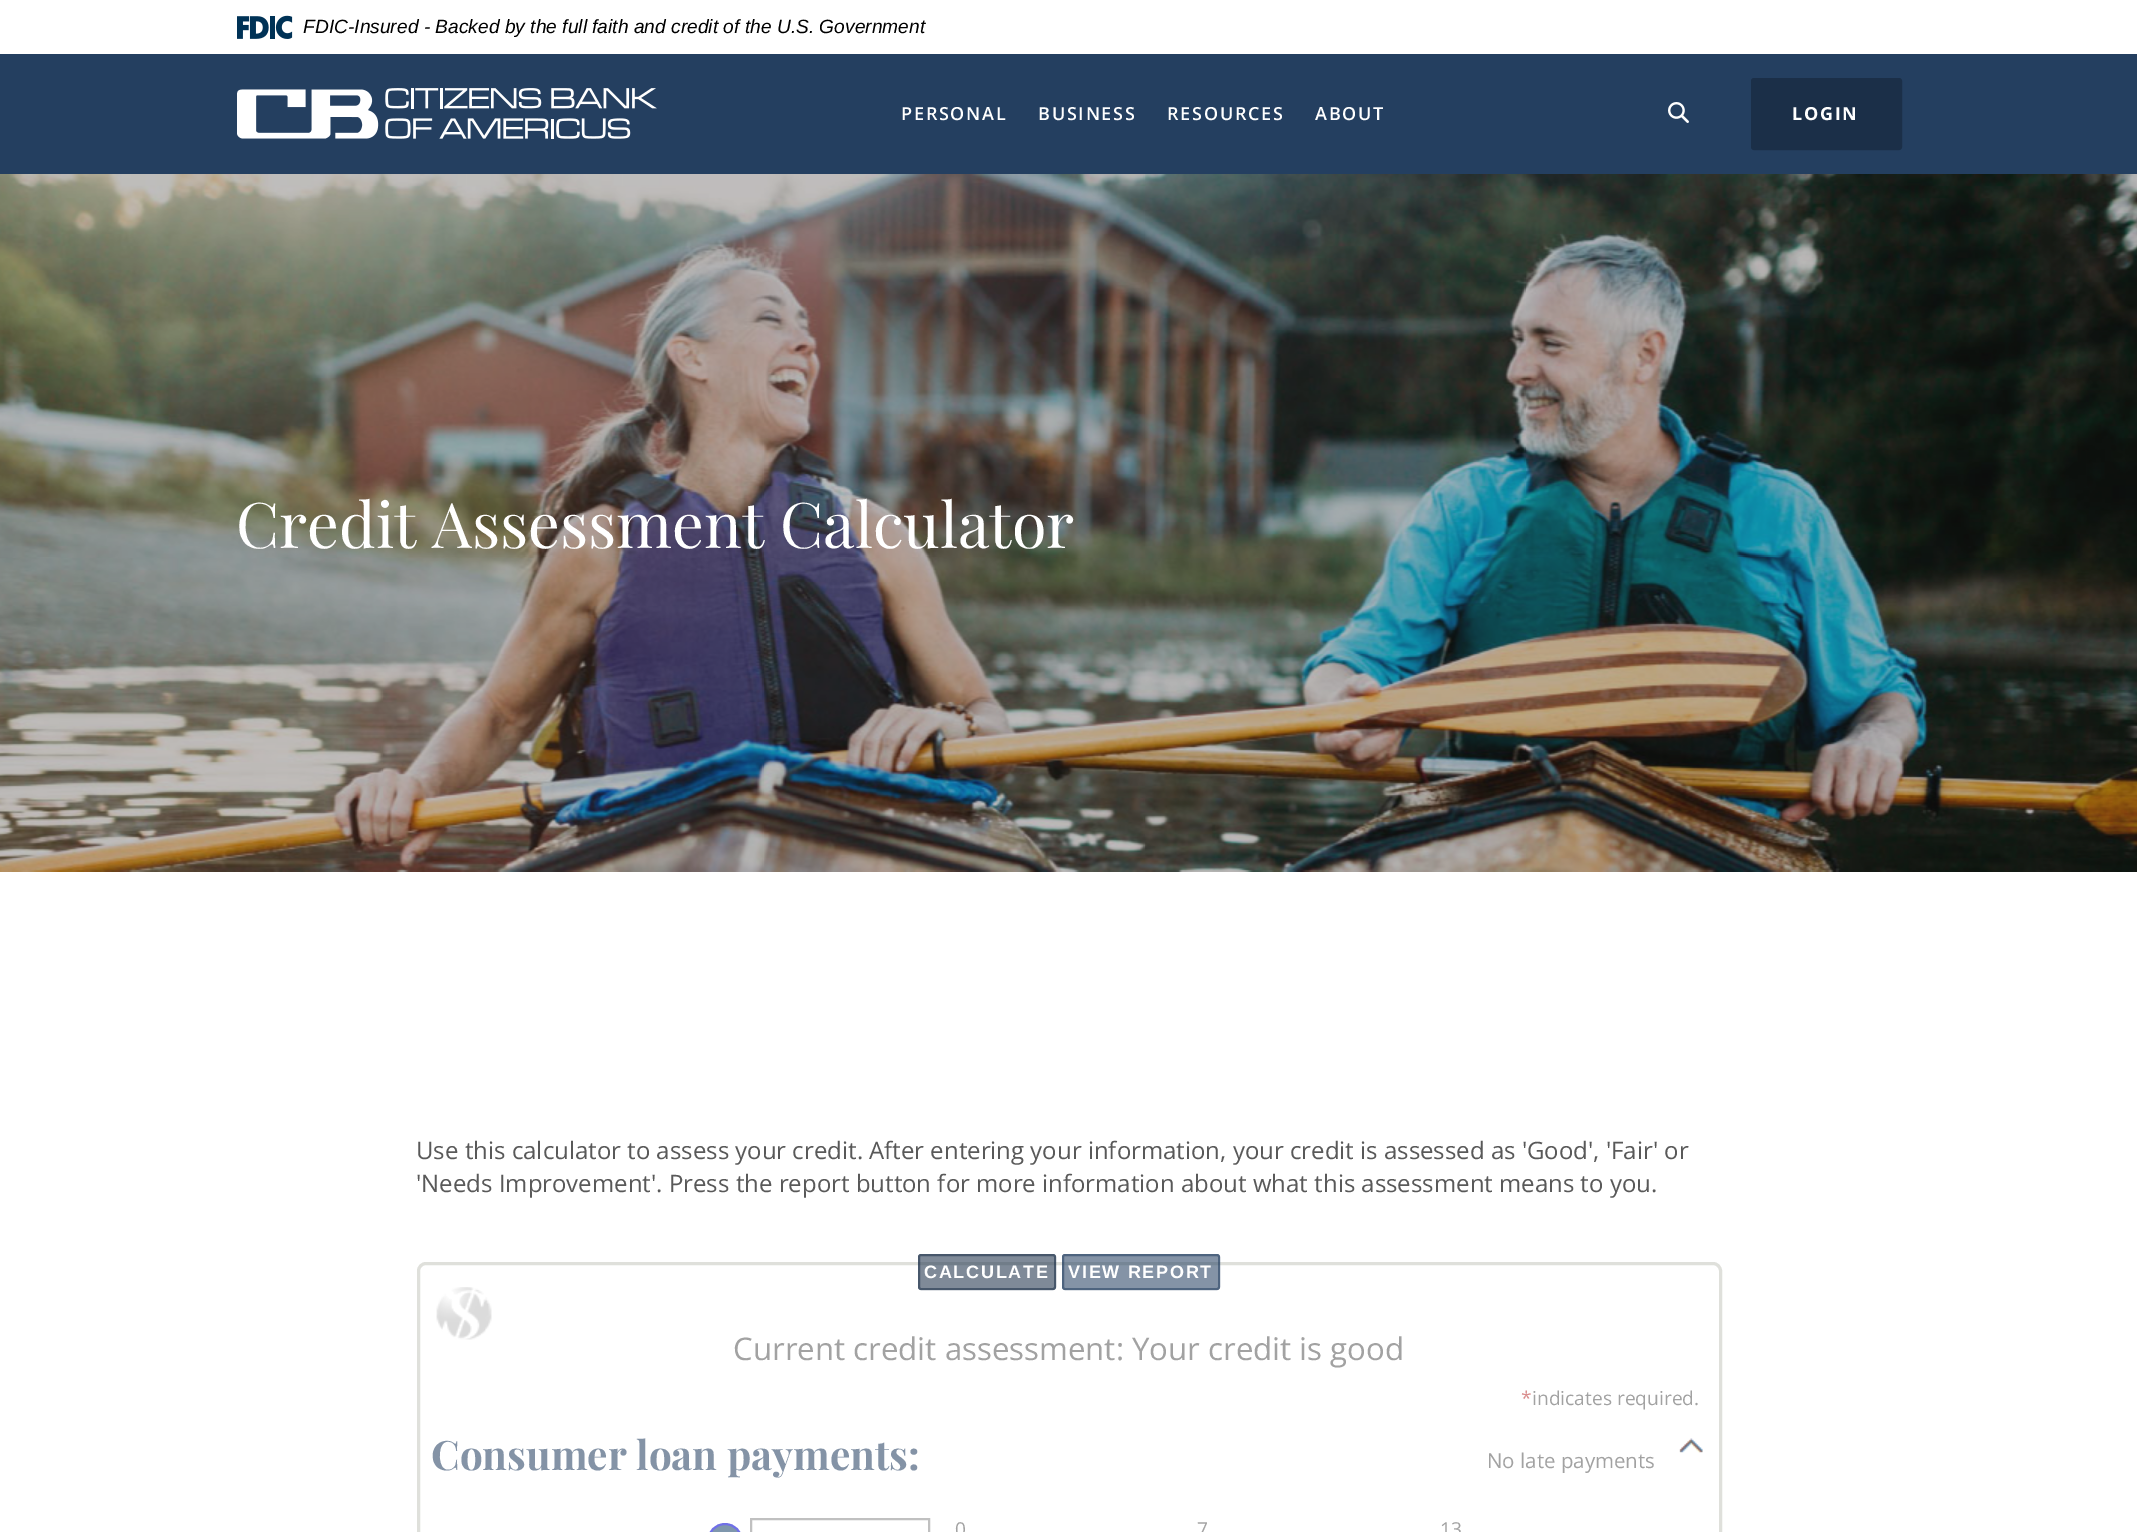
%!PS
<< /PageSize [2137 1532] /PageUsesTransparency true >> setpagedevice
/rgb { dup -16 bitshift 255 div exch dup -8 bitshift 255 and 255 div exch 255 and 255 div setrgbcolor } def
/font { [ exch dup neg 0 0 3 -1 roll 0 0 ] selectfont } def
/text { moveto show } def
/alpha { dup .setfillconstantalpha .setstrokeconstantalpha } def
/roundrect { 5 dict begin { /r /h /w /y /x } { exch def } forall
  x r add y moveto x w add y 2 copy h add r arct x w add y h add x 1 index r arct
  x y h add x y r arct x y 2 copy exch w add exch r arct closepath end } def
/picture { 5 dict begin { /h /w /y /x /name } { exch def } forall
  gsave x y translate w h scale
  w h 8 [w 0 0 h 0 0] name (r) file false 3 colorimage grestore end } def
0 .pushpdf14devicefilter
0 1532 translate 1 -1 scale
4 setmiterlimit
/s1 { /LiberationSans-Italic 19.2 font 16#000000 rgb } def
/s2 { /PlayfairDisplay-Regular 63 font 16#FFFFFF rgb } def
/s3 { /OpenSans-Regular 24 font 16#595959 rgb } def
/s4 { /OpenSans-Regular 31.2 font 16#A2A2A2 rgb } def
/s5 { /OpenSans-Regular 19.2 font 16#D98D8D rgb } def
/s6 { /OpenSans-Regular 19.2 font 16#A2A2A2 rgb } def
/s7 { /PlayfairDisplay-Bold 40.5 font 16#8493A6 rgb } def
/s8 { /OpenSans-Regular 20.5 font 16#A2A2A2 rgb } def
16#FFFFFF rgb
0 0 2137 1532 rectfill
16#243F60 rgb
0 54 2137 120 rectfill
(pic1.raw) 237 15 56 24 picture
s1
(FDIC-Insured - Backed by the full faith and credit of the U.S. Government) 303 33 text
(pic2.raw) 237 88 420 51 picture
/OpenSans-SemiBold 18 font
16#FFFFFF rgb
901 120 moveto 1.75 0 (PERSONAL) ashow
1038 120 moveto 1.75 0 (BUSINESS) ashow
1167 120 moveto 1.75 0 (RESOURCES) ashow
1315 120 moveto 1.75 0 (ABOUT) ashow
(pic3.raw) 1668 102 21 21 picture
16#1B2F48 rgb
1752 79 149 70 2 roundrect gsave fill grestore
2 setlinewidth
stroke
/OpenSans-Bold 18 font
16#FFFFFF rgb
1792 120 moveto 1.75 0 (LOGIN) ashow
(pic4.raw) 0 174 2137 698 picture
s2
(Credit Assessment Calculator) 236 548 text
s3
(Use this calculator to assess your credit. After entering your information, your credit is assessed as 'Good', 'Fair' or) 416 1159 text
('Needs Improvement'. Press the report button for more information about what this assessment means to you.) 416 1192 text
16#DFE0DB rgb
3 setlinewidth
418.5 1263.5 1302 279 7.5 roundrect stroke
0.56 alpha
16#1B2F48 rgb
918 1254 138 36 3 roundrect fill
2 setlinewidth
919 1255 136 34 2 roundrect stroke
/LiberationSans-Bold 18 font
1 alpha
16#FFFFFF rgb
924 1278 moveto 1.75 0 (CALCULATE) ashow
0.56 alpha
16#243F60 rgb
1062 1254 158 36 3 roundrect fill
1063 1255 156 34 2 roundrect stroke
1 alpha
16#FFFFFF rgb
1068 1278 moveto 1.75 0 (VIEW REPORT) ashow
(pic5.raw) 436 1287 56 53 picture
s4
(Current credit assessment: Your credit is good) 733 1360 text
s5
(*) 1521 1405 text
s6
(indicates required.) 1532 1405 text
s7
(Consumer loan payments:) 431 1470 text
(pic6.raw) 1679 1438 24 15 picture
s8
(No late payments) 1487 1468 text
16#7F97AD rgb
708 1524 34 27 17 roundrect gsave fill grestore
16#7070E7 rgb
stroke
16#C0C0C0 rgb
751 1519 178 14 rectstroke
s6
(0) 955 1536 text
(7) 1197 1536 text
(13) 1440 1536 text
.poppdf14devicefilter showpage
